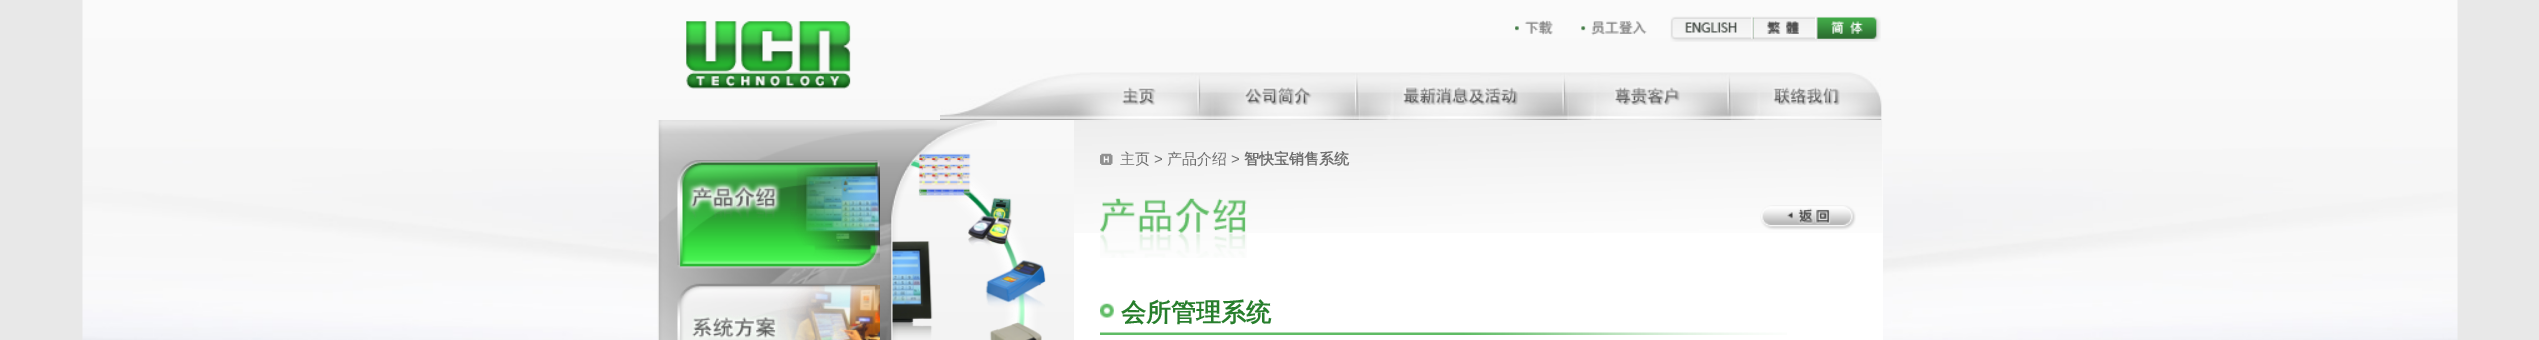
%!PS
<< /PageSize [2539 340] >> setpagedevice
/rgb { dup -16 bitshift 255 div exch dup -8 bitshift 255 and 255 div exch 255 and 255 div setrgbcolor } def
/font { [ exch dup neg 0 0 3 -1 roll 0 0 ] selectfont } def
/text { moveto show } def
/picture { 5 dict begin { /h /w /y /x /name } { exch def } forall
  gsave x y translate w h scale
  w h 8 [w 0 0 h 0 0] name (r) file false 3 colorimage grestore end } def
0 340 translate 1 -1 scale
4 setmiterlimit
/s1 { /WenQuanYiZenHei-Medium 15 font 16#6F6F6F rgb } def
/s2 { /LiberationSans-Regular 15 font 16#6F6F6F rgb } def
/s3 { /WenQuanYiZenHei-Bold 15 font 16#6F6F6F rgb } def
/s4 { /WenQuanYiZenHei-Bold 25 font 16#277E2C rgb } def
16#E8E8E8 rgb
0 0 2539 340 rectfill
(pic1.raw) 82 0 2376 340 picture
(pic2.raw) 686 21 165 68 picture
(pic3.raw) 1515 20 38 15 picture
(pic4.raw) 1581 20 66 16 picture
(pic5.raw) 1670 16 84 26 picture
(pic6.raw) 1672 17 82 23 picture
(pic7.raw) 1753 16 65 26 picture
(pic8.raw) 1753 17 65 23 picture
(pic9.raw) 1817 16 64 26 picture
(pic10.raw) 940 72 942 48 picture
(pic11.raw) 1122 87 34 18 picture
(pic12.raw) 1244 87 68 18 picture
(pic13.raw) 1402 86 116 19 picture
(pic14.raw) 1614 86 66 19 picture
(pic15.raw) 1772 87 68 18 picture
(pic24.raw) 892 148 154 192 picture
(pic16.raw) 657 120 340 220 picture
(pic17.raw) 677 160 203 107 picture
(pic18.raw) 677 160 203 109 picture
(pic19.raw) 790 166 90 97 picture
(pic20.raw) 686 182 95 36 picture
(pic21.raw) 677 283 203 57 picture
(pic22.raw) 780 285 100 55 picture
(pic23.raw) 692 314 86 25 picture
16#FFFFFF rgb
1074 120 809 220 rectfill
(pic25.raw) 1074 120 809 113 picture
(pic26.raw) 1100 153 13 12 picture
s1
(主页) 1120 164 text
s2
(>) 1154 164 text
s1
(产品介绍) 1167 164 text
s2
(>) 1231 164 text
s3
(智快宝销售系统) 1244 164 text
(pic27.raw) 1100 198 147 60 picture
(pic28.raw) 1760 205 96 25 picture
(pic29.raw) 1100 303 14 15 picture
s4
(会所管理系统) 1121 321 text
(pic30.raw) 1100 332 687 3 picture
showpage
